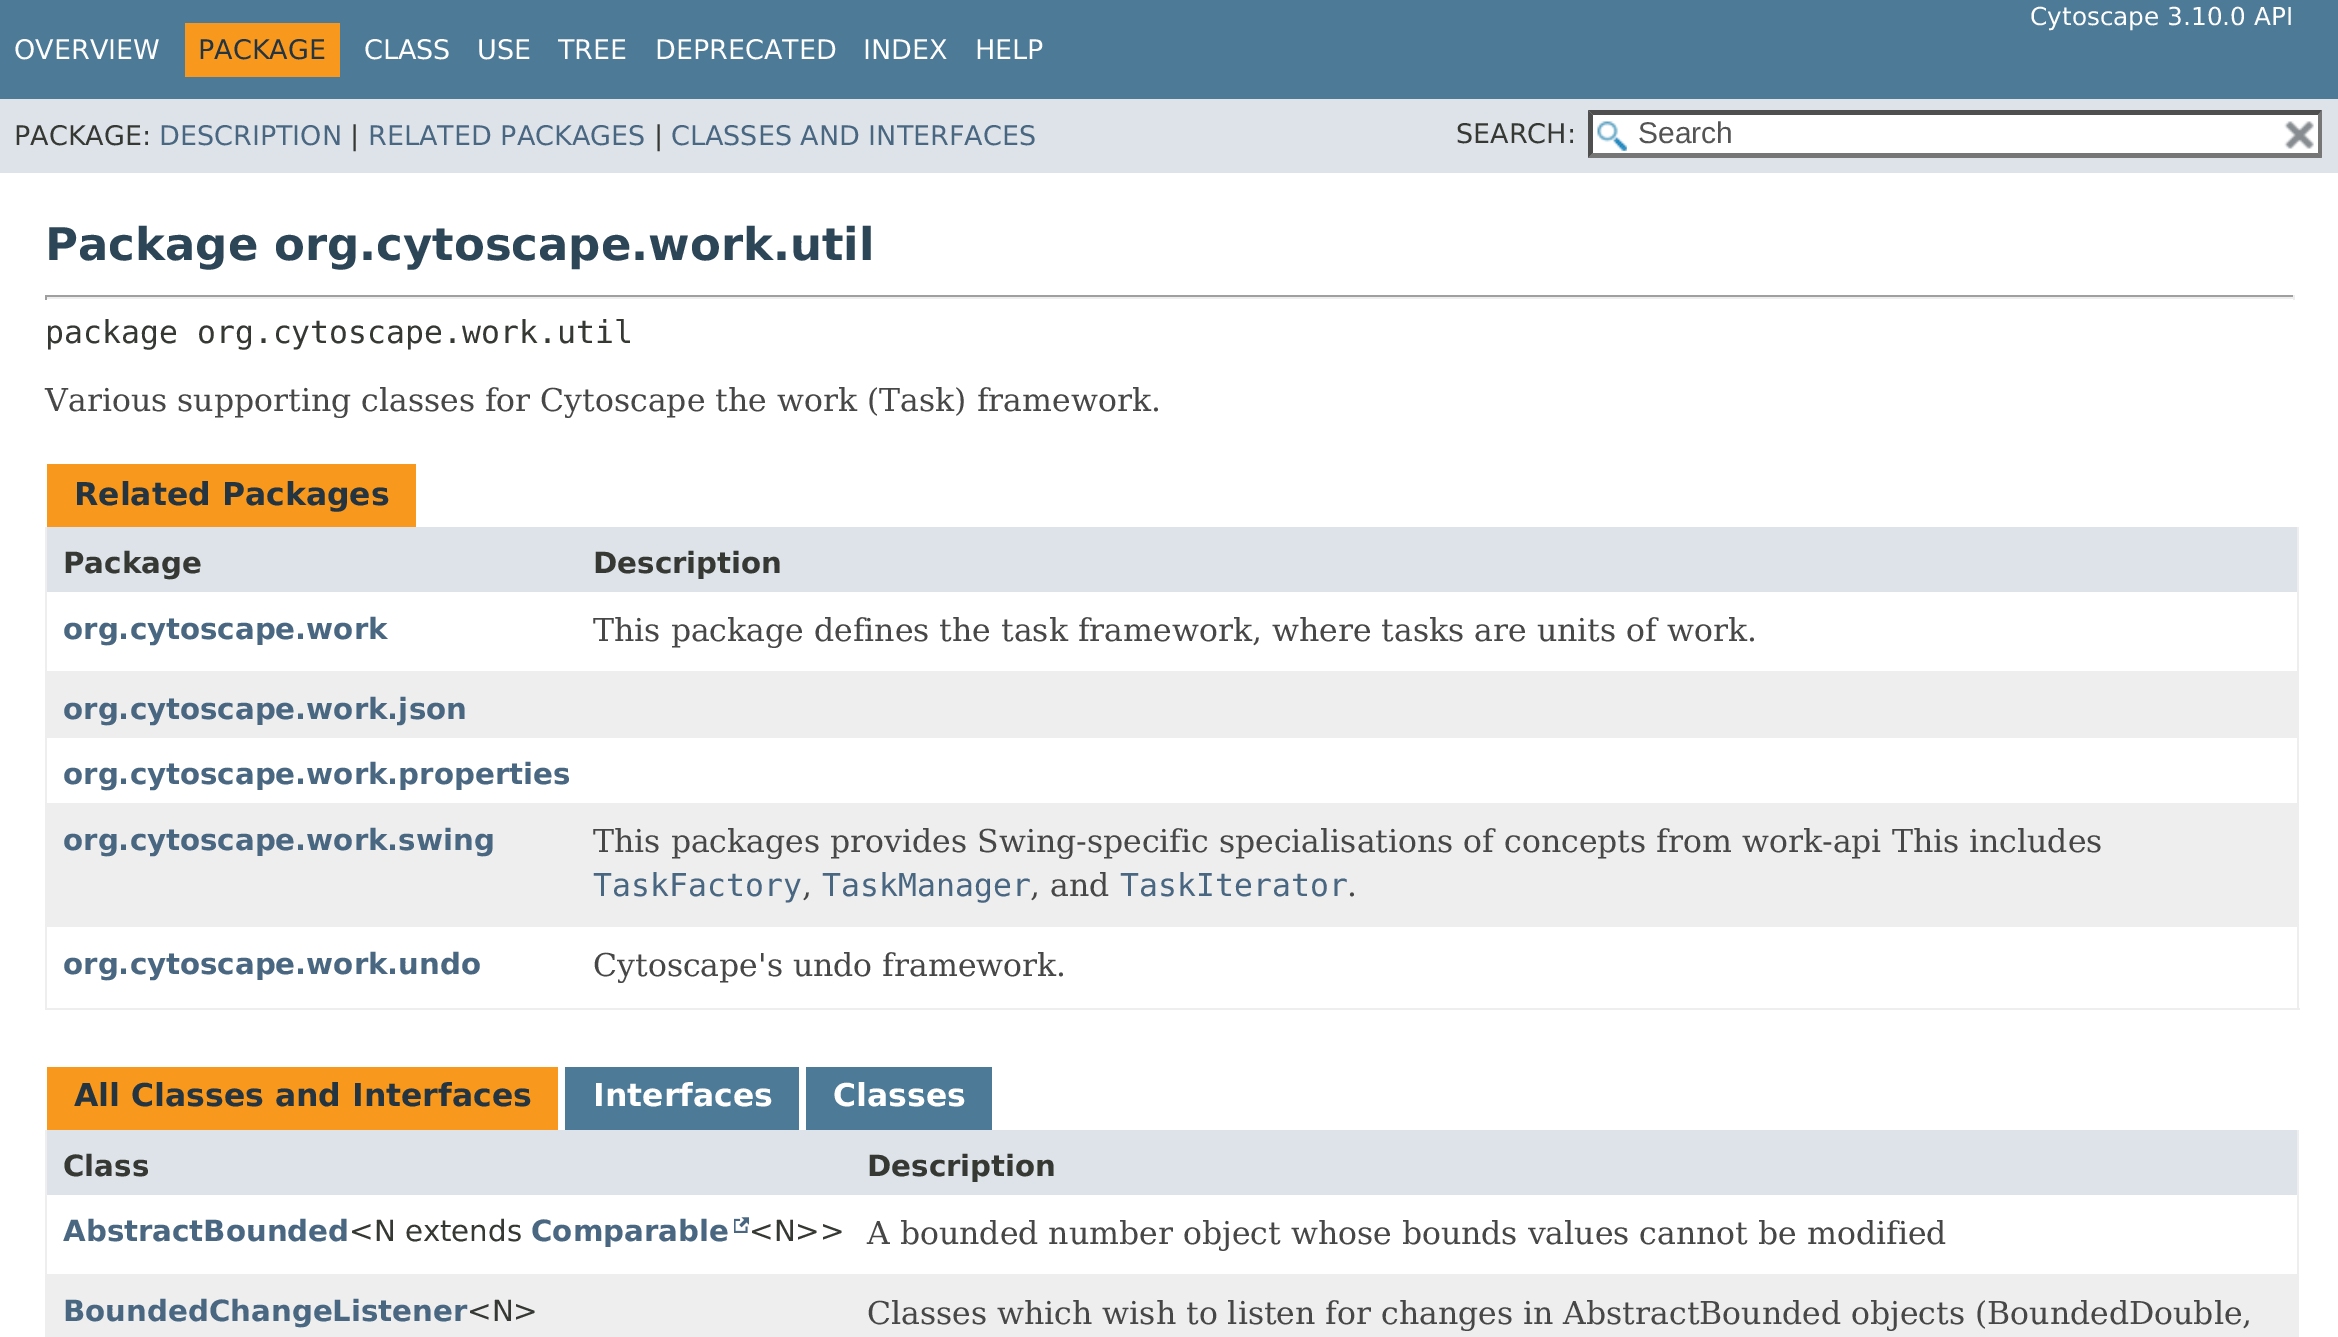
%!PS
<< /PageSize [2338 1337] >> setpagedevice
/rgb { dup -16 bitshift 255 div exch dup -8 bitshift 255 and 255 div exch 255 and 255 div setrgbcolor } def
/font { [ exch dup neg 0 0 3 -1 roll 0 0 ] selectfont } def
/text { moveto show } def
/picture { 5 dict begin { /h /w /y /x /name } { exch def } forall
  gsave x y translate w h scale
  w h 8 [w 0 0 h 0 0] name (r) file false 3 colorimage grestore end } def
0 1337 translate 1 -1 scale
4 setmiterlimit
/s1 { /DejaVuSans-Regular 24.75 font 16#FFFFFF rgb } def
/s2 { /DejaVuSans-Regular 27 font 16#FFFFFF rgb } def
/s3 { /DejaVuSans-Regular 27 font 16#253441 rgb } def
/s4 { /DejaVuSans-Regular 27 font 16#353833 rgb } def
/s5 { /DejaVuSans-Regular 27 font 16#4A6782 rgb } def
/s6 { /LiberationSans-Regular 30 font 16#545454 rgb } def
/s7 { /DejaVuSans-Bold 45 font 16#2C4557 rgb } def
/s8 { /DejaVuSansMono-Regular 31.5 font 16#353833 rgb } def
/s9 { /DejaVuSerif-Regular 31.5 font 16#474747 rgb } def
/s10 { /DejaVuSans-Bold 31.5 font 16#253441 rgb } def
/s11 { /DejaVuSans-Bold 29.25 font 16#353833 rgb } def
/s12 { /DejaVuSans-Bold 29.25 font 16#4A6782 rgb } def
/s13 { /DejaVuSansMono-Regular 31.5 font 16#4A6782 rgb } def
/s14 { /DejaVuSans-Bold 31.5 font 16#FFFFFF rgb } def
/s15 { /DejaVuSans-Regular 29.25 font 16#353833 rgb } def
16#FFFFFF rgb
0 0 2338 1337 rectfill
16#4D7A97 rgb
0 0 2338 99 rectfill
s1
(Cytoscape 3.10.0 API) 2030 25 text
s2
(OVERVIEW) 14 59 text
16#F8981D rgb
185 23 155 54 rectfill
s3
(PACKAGE) 198 59 text
s2
(CLASS) 364 59 text
(USE) 477 59 text
(TREE) 558 59 text
(DEPRECATED) 655 59 text
(INDEX) 863 59 text
(HELP) 975 59 text
16#DEE3E9 rgb
0 99 2338 74 rectfill
s4
(PACKAGE:) 14 145 text
s5
(DESCRIPTION) 159 145 text
s4
(|) 350 145 text
s5
(RELATED PACKAGES) 368 145 text
s4
(|) 654 145 text
s5
(CLASSES AND INTERFACES) 671 145 text
s4
(SEARCH:) 1456 143 text
16#FFFFFF rgb
1589 110 733 48 rectfill
(pic1.raw) 1597 121 30 30 picture
16#4F4F4F rgb
1588 110 moveto 2322 110 lineto 2318 115 lineto 1593 115 lineto closepath fill
16#767676 rgb
2322 110 moveto 2322 158 lineto 2318 153 lineto 2318 115 lineto closepath fill
2322 158 moveto 1588 158 lineto 1593 153 lineto 2318 153 lineto closepath fill
16#4F4F4F rgb
1588 158 moveto 1588 110 lineto 1593 115 lineto 1593 153 lineto closepath fill
s6
(Search) 1638 143 text
(pic2.raw) 2284 121 30 28 picture
s7
(Package org.cytoscape.work.util) 45 260 text
16#9F9F9F rgb
45 295 2250 2 rectfill
16#EEEEEE rgb
2293 295 2 5 rectfill
45 297 2250 2 rectfill
16#9F9F9F rgb
45 295 2 5 rectfill
s8
(package org.cytoscape.work.util) 45 343 text
s9
(Various supporting classes for Cytoscape the work \(Task\) framework.) 45 411 text
16#F8981D rgb
47 464 369 63 rectfill
s10
(Related Packages) 74 505 text
16#EEEEEE rgb
2297 527 2 483 rectfill
45 1008 2255 2 rectfill
45 527 2 483 rectfill
16#DEE3E9 rgb
47 527 2250 65 rectfill
s11
(Package) 63 573 text
(Description) 593 573 text
s12
(org.cytoscape.work) 63 639 text
s9
(This package defines the task framework, where tasks are units of work.) 593 641 text
16#EEEEEF rgb
47 671 2250 67 rectfill
s12
(org.cytoscape.work.json) 63 719 text
(org.cytoscape.work.properties) 63 784 text
16#EEEEEF rgb
47 803 2250 124 rectfill
s12
(org.cytoscape.work.swing) 63 850 text
s9
(This packages provides Swing-specific specialisations of concepts from work-api This includes) 593 852 text
s13
(TaskFactory) 593 896 text
s9
(,) 802 896 text
s13
(TaskManager) 822 896 text
s9
(, and) 1030 896 text
s13
(TaskIterator) 1120 896 text
s9
(.) 1347 896 text
s12
(org.cytoscape.work.undo) 63 974 text
s9
(Cytoscape's undo framework.) 593 976 text
16#F8981D rgb
47 1067 511 63 rectfill
s10
(All Classes and Interfaces) 74 1106 text
16#4D7A97 rgb
565 1067 234 63 rectfill
s14
(Interfaces) 593 1106 text
16#4D7A97 rgb
806 1067 186 63 rectfill
s14
(Classes) 833 1106 text
16#EEEEEE rgb
2297 1130 2 207 rectfill
45 1130 2 207 rectfill
16#DEE3E9 rgb
47 1130 2250 65 rectfill
s11
(Class) 63 1176 text
(Description) 867 1176 text
s12
(AbstractBounded) 63 1241 text
s15
(<N extends) 349 1241 text
s12
(Comparable) 531 1241 text
(pic3.raw) 734 1217 15 16 picture
s15
(<N>>) 749 1241 text
s9
(A bounded number object whose bounds values cannot be modified) 867 1244 text
16#EEEEEF rgb
47 1274 2250 63 rectfill
s12
(BoundedChangeListener) 63 1321 text
s15
(<N>) 467 1321 text
s9
(Classes which wish to listen for changes in AbstractBounded objects \(BoundedDouble,) 867 1324 text
showpage
